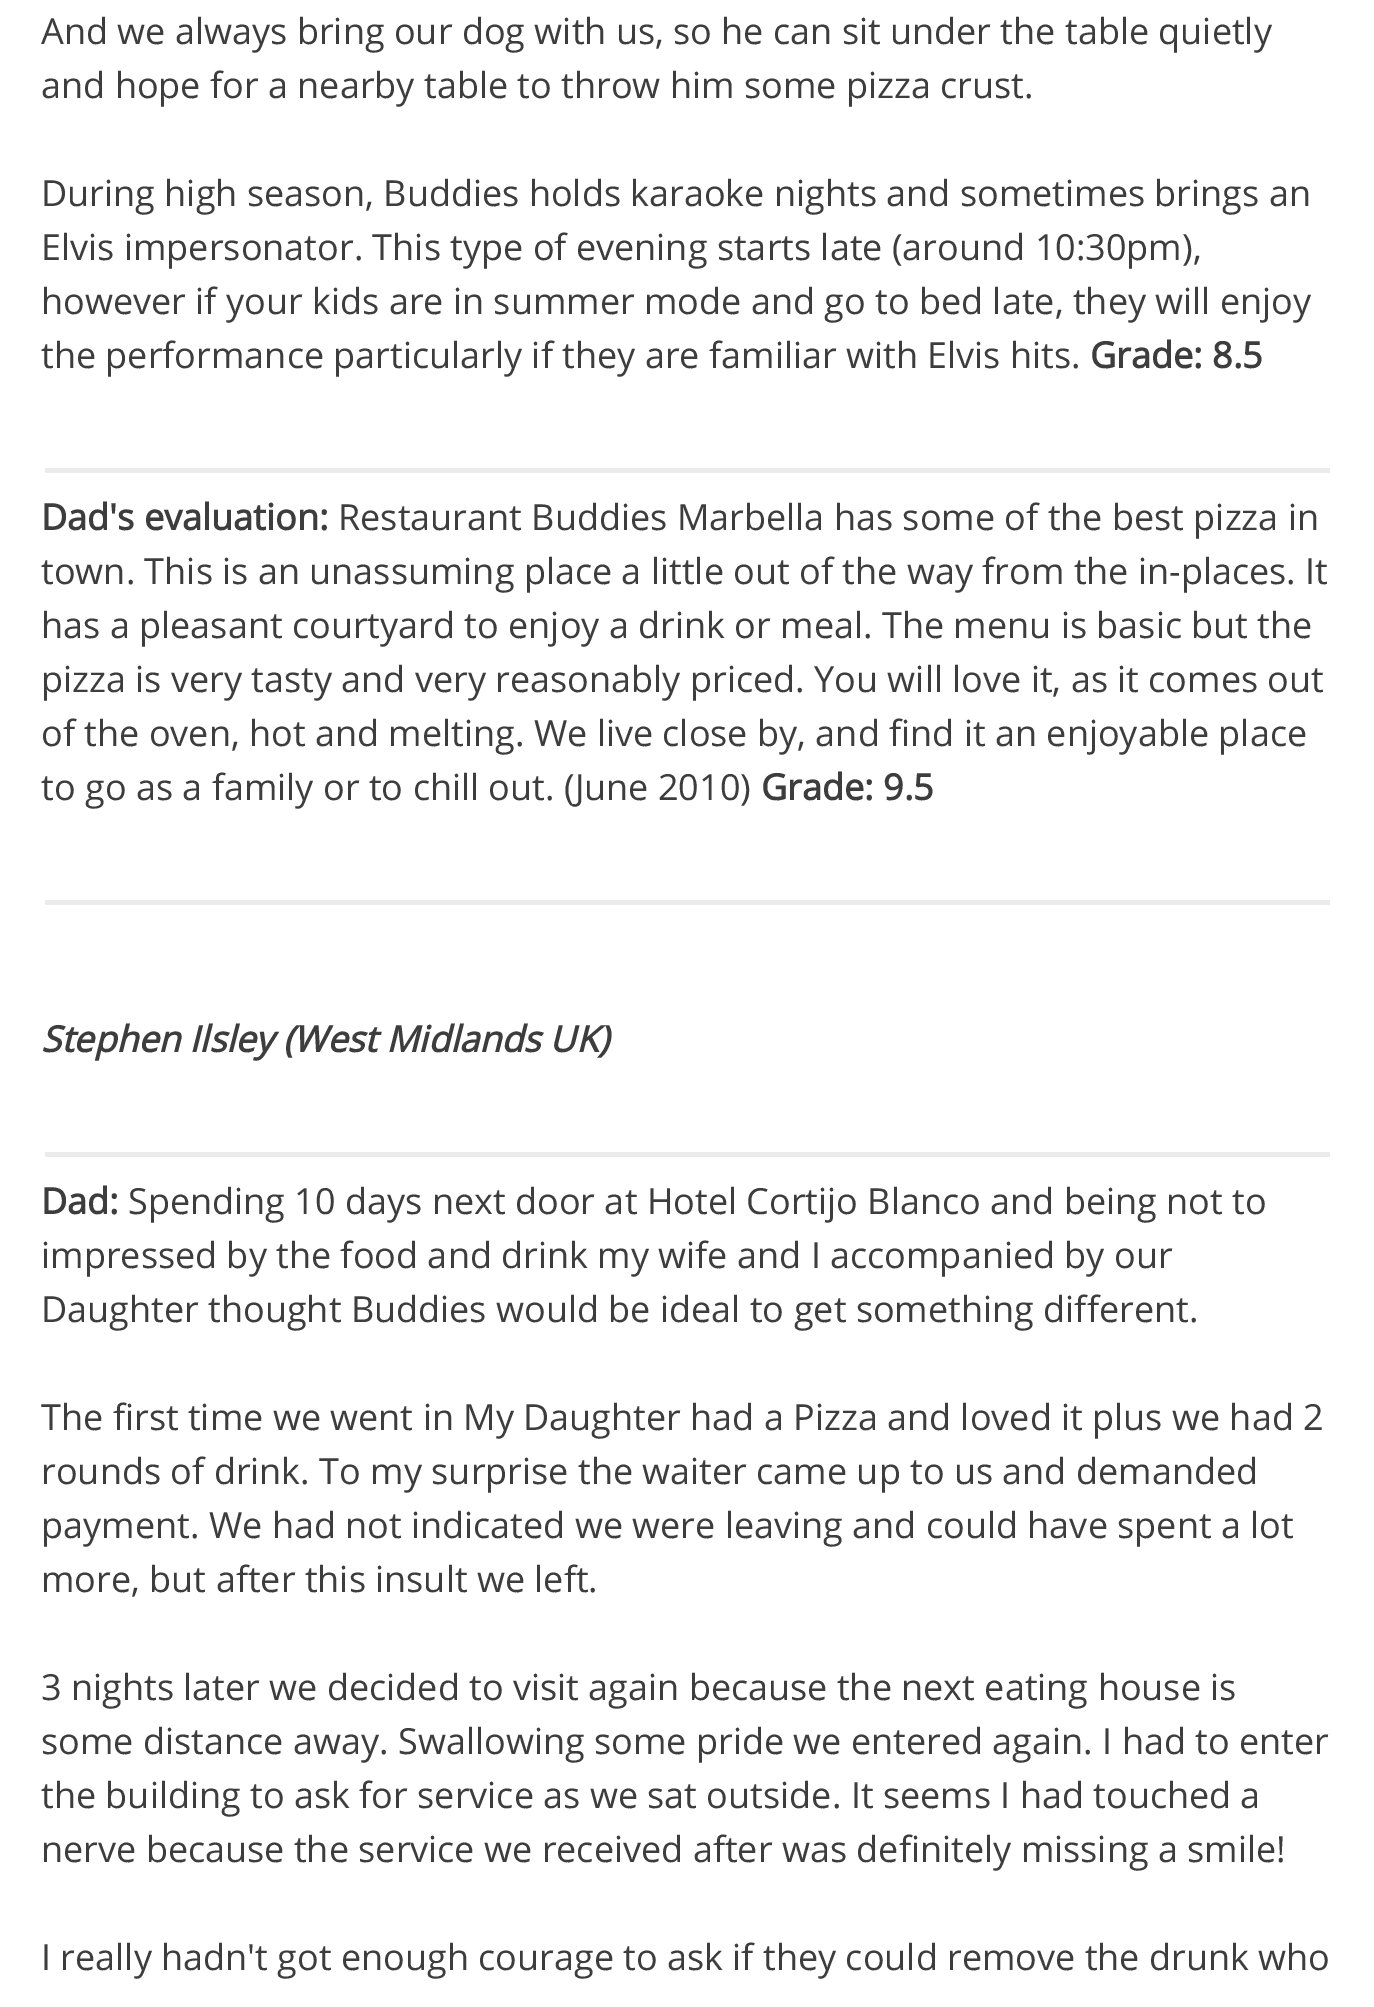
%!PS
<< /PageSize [1374 2007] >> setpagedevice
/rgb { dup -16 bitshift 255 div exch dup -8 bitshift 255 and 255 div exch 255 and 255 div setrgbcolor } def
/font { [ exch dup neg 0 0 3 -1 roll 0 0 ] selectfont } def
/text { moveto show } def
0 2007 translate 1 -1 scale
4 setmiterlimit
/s1 { /OpenSans-Regular 36 font 16#3D3D3D rgb } def
/s2 { /OpenSans-Bold 36 font 16#3D3D3D rgb } def
/s3 { /OpenSans-BoldItalic 36 font 16#3D3D3D rgb } def
16#FFFFFF rgb
0 0 1374 2007 rectfill
s1
(And we always bring our dog with us, so he can sit under the table quietly) 41 44 text
(and hope for a nearby table to throw him some pizza crust.) 41 98 text
(During high season, Buddies holds karaoke nights and sometimes brings an) 41 206 text
(Elvis impersonator. This type of evening starts late \(around 10:30pm\),) 41 260 text
(however if your kids are in summer mode and go to bed late, they will enjoy) 41 314 text
(the performance particularly if they are familiar with Elvis hits.) 41 368 text
s2
(Grade: 8.5) 1090 368 text
16#EBEBEB rgb
45 468 1285 5 rectfill
s2
(Dad's evaluation:) 41 530 text
s1
(Restaurant Buddies Marbella has some of the best pizza in) 338 530 text
(town. This is an unassuming place a little out of the way from the in-places. It) 41 584 text
(has a pleasant courtyard to enjoy a drink or meal. The menu is basic but the) 41 638 text
(pizza is very tasty and very reasonably priced. You will love it, as it comes out) 41 692 text
(of the oven, hot and melting. We live close by, and find it an enjoyable place) 41 746 text
(to go as a family or to chill out. \(June 2010\)) 41 800 text
s2
(Grade: 9.5) 761 800 text
16#EBEBEB rgb
45 900 1285 5 rectfill
s3
(Stephen Ilsley \(West Midlands UK\)) 41 1052 text
16#EBEBEB rgb
45 1152 1285 5 rectfill
s2
(Dad:) 41 1214 text
s1
(Spending 10 days next door at Hotel Cortijo Blanco and being not to) 128 1214 text
(impressed by the food and drink my wife and I accompanied by our) 41 1268 text
(Daughter thought Buddies would be ideal to get something different.) 41 1322 text
(The first time we went in My Daughter had a Pizza and loved it plus we had 2) 41 1430 text
(rounds of drink. To my surprise the waiter came up to us and demanded) 41 1484 text
(payment. We had not indicated we were leaving and could have spent a lot) 41 1538 text
(more, but after this insult we left.) 41 1592 text
(3 nights later we decided to visit again because the next eating house is) 41 1700 text
(some distance away. Swallowing some pride we entered again. I had to enter) 41 1754 text
(the building to ask for service as we sat outside. It seems I had touched a) 41 1808 text
(nerve because the service we received after was definitely missing a smile!) 41 1862 text
(I really hadn't got enough courage to ask if they could remove the drunk who) 41 1970 text
showpage
